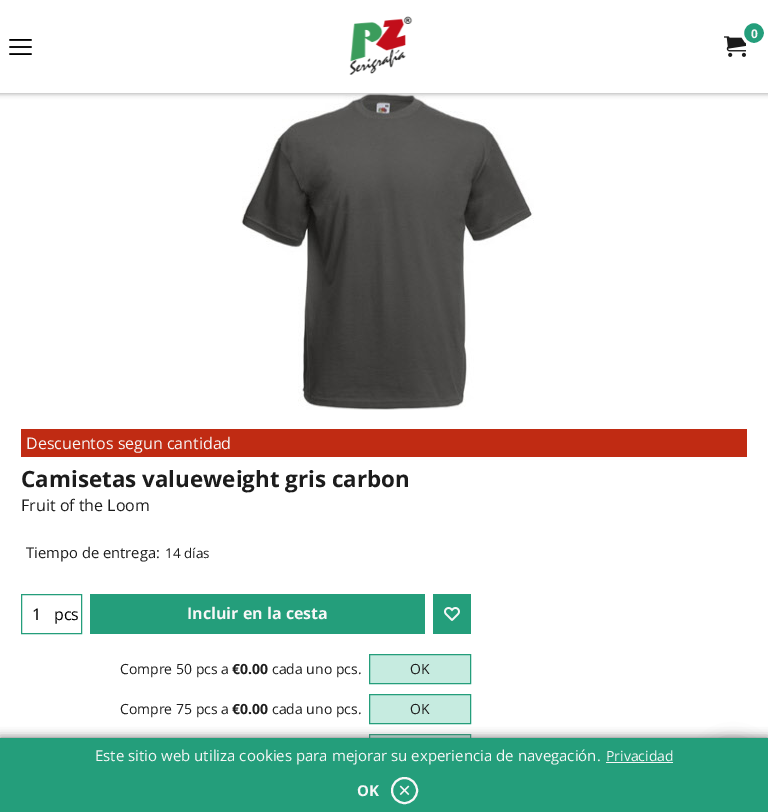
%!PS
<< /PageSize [768 812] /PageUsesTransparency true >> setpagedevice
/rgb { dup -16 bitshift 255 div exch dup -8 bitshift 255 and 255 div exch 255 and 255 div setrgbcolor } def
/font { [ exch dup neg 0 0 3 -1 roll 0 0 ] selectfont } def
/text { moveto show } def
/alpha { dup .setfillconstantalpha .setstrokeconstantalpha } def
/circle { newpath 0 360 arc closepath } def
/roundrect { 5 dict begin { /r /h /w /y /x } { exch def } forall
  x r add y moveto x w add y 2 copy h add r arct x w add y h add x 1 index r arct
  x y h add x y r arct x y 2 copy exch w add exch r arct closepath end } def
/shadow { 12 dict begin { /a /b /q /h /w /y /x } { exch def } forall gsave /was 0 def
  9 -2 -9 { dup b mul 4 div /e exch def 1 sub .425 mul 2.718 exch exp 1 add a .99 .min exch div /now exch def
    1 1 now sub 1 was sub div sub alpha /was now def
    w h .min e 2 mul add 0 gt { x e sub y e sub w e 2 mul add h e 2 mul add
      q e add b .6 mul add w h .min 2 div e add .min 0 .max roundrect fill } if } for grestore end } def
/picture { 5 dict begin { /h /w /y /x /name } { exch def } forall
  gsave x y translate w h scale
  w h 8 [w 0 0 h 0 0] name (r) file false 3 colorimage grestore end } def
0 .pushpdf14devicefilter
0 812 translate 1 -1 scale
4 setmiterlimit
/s1 { /OpenSans-Bold 12 font 16#F7F7F7 rgb } def
/s2 { /OpenSans-Regular 16 font 16#F7F7F7 rgb } def
/s3 { /OpenSans-Bold 22.4 font 16#1C1C1C rgb } def
/s4 { /OpenSans-Regular 16 font 16#1C1C1C rgb } def
/s5 { /OpenSans-Regular 14.75 font 16#1C1C1C rgb } def
/s6 { /OpenSans-Regular 13.5 font 16#1C1C1C rgb } def
/s7 { /OpenSans-Regular 16 font 16#000000 rgb } def
/s8 { /OpenSans-Bold 16 font 16#F7F7F7 rgb } def
/s9 { /OpenSans-Regular 14 font 16#1C1C1C rgb } def
/s10 { /OpenSans-Bold 14 font 16#1C1C1C rgb } def
/s11 { /OpenSans-Regular 15 font 16#F7F7F7 rgb } def
/s12 { /OpenSans-Regular 14 font 16#F7F7F7 rgb } def
/s13 { /OpenSans-Bold 15 font 16#F7F7F7 rgb } def
16#FFFFFF rgb
0 0 768 812 rectfill
(pic4.raw) 240 93 294 317 picture
16#000000 rgb
-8 -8 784 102 0 2.5 0.3 shadow
16#FFFFFF rgb
0 0 768 93 rectfill
(pic1.raw) 349 16 64 59 picture
(pic2.raw) 724 36 22 21 picture
16#249E7B rgb
754 33 11.5 circle gsave fill grestore
16#FFFFFF rgb
3 setlinewidth
stroke
s1
(0) 751 38 text
(pic3.raw) 9 39 23 16 picture
16#C02B13 rgb
21 429 726 28 rectfill
s2
(Descuentos segun cantidad) 26 449 text
s3
(Camisetas valueweight gris carbon) 21 487 text
s4
(Fruit of the Loom) 21 511 text
s5
(Tiempo de entrega:) 26 558 text
s6
(14 días) 165 558 text
16#249E7B rgb
1 setlinewidth
21.5 594.5 60 39 rectstroke
s7
(1) 32 620 text
(pcs) 54 620 text
16#249E7B rgb
90 594 335 40 rectfill
s8
(Incluir en la cesta) 187 619 text
16#249E7B rgb
433 594 38 40 rectfill
(pic5.raw) 444 607 16 14 picture
s9
(Compre 50 pcs a) 120 674 text
s10
(€0.00) 232 674 text
s9
(cada uno pcs.) 272 674 text
16#C6EBE0 rgb
369.5 654.5 moveto 470.5 654.5 lineto 470.5 683.5 lineto 369.5 683.5 lineto closepath gsave fill grestore
16#249E7B rgb
stroke
s9
(OK) 410 674 text
(Compre 75 pcs a) 120 714 text
s10
(€0.00) 232 714 text
s9
(cada uno pcs.) 272 714 text
16#C6EBE0 rgb
369.5 694.5 moveto 470.5 694.5 lineto 470.5 723.5 lineto 369.5 723.5 lineto closepath gsave fill grestore
16#249E7B rgb
stroke
s9
(OK) 410 714 text
16#C6EBE0 rgb
370 735 100 3 rectfill
16#249E7B rgb
369.5 734.5 101 29 rectstroke
16#666666 rgb
0 738 768 74 0 5 1 shadow
16#000000 rgb
702 741 62 62 31 8.5 0.2 shadow
16#249E7B rgb
0 738 768 74 rectfill
s11
(Este sitio web utiliza cookies para mejorar su experiencia de navegación.) 95 761 text
s12
(Privacidad) 606 761 text
606 762 67 1 rectfill
s13
(OK) 357 796 text
2 setlinewidth
404.5 790.5 12.5 circle stroke
(pic6.raw) 399 785 11 11 picture
.poppdf14devicefilter showpage
